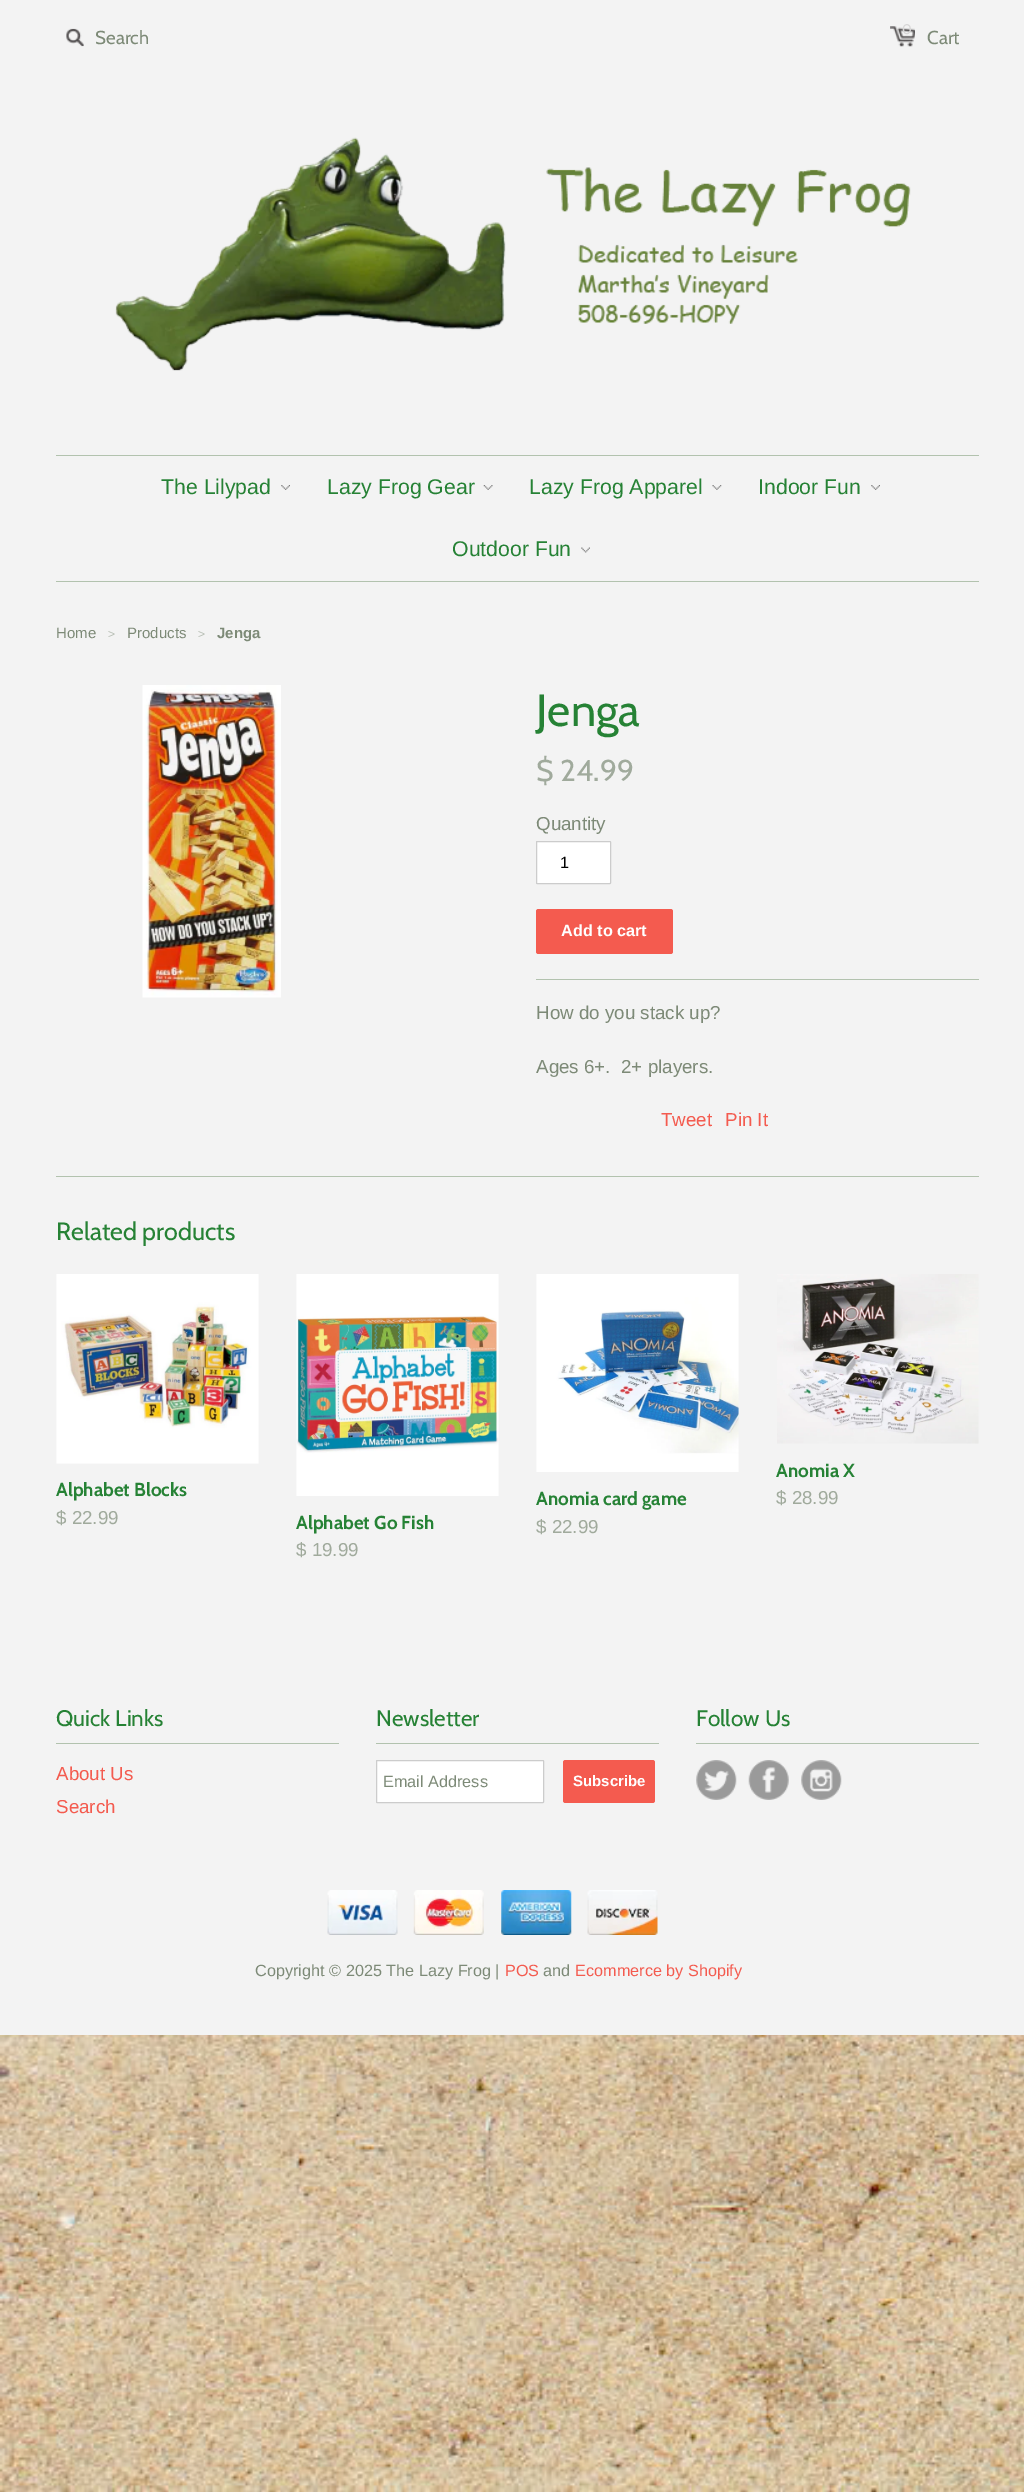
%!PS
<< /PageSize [1024 2492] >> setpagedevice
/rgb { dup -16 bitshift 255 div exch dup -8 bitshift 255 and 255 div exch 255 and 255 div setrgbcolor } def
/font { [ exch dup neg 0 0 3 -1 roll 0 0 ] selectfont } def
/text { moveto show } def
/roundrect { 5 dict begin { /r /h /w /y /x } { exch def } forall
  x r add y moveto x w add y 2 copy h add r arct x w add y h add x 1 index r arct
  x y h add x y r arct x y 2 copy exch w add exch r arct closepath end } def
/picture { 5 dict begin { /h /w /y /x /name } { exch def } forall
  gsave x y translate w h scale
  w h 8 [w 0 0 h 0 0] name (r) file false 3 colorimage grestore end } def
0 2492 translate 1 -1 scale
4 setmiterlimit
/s1 { /Cabin-Regular 18.75 font 16#7D8A77 rgb } def
/s2 { /Cabin-Regular 14 font 16#D8D7D7 rgb } def
/s3 { /LiberationSans-Regular 21.25 font 16#268235 rgb } def
/s4 { /LiberationSans-Regular 15 font 16#7D8A77 rgb } def
/s5 { /LiberationSans-Regular 12 font 16#B8BFB5 rgb } def
/s6 { /LiberationSans-Bold 15 font 16#7D8A77 rgb } def
/s7 { /Cabin-Regular 45 font 16#268235 rgb } def
/s8 { /Cabin-Regular 30 font 16#A0AA9C rgb } def
/s9 { /LiberationSans-Regular 18.75 font 16#7D8A77 rgb } def
/s10 { /LiberationSans-Regular 16.25 font 16#000000 rgb } def
/s11 { /LiberationSans-Bold 16.25 font 16#FFFFFF rgb } def
/s12 { /LiberationSans-Regular 18.75 font 16#F45B4F rgb } def
/s13 { /Cabin-Regular 25 font 16#268235 rgb } def
/s14 { /Cabin-Bold 18.75 font 16#268235 rgb } def
/s15 { /LiberationSans-Regular 18.75 font 16#A0AA9C rgb } def
/s16 { /Cabin-Regular 22.5 font 16#268235 rgb } def
/s17 { /LiberationSans-Regular 16.25 font 16#7D8A77 rgb } def
/s18 { /LiberationSans-Bold 15 font 16#FFFFFF rgb } def
/s19 { /LiberationSans-Regular 16.25 font 16#F45B4F rgb } def
16#FFFFFF rgb
0 0 1024 2492 rectfill
(pic1.raw) 0 2035 1024 457 picture
16#F3F3F3 rgb
0 0 1024 2035 rectfill
(pic2.raw) 66 28 18 19 picture
s1
(Search) 95 44 text
(pic3.raw) 890 26 25 21 picture
s2
(0) 902 34 text
s1
(Cart) 927 44 text
(pic4.raw) 115 137 796 234 picture
16#B2C2AE rgb
56 455 923 1 rectfill
56 581 923 1 rectfill
(pic5.raw) 281 485 9 5 picture
s3
(The Lilypad) 161 494 text
(pic6.raw) 483 485 10 5 picture
(Lazy Frog Gear) 327 494 text
(pic7.raw) 712 485 10 5 picture
(Lazy Frog Apparel) 529 494 text
(pic5.raw) 871 485 9 5 picture
(Indoor Fun) 758 494 text
(pic8.raw) 581 547 9 6 picture
(Outdoor Fun) 452 556 text
s4
(Home) 56 638 text
s5
(>) 108 638 text
s4
(Products) 127 638 text
s5
(>) 198 638 text
s6
(Jenga) 217 638 text
(pic9.raw) 142 685 139 313 picture
s7
(Jenga) 536 726 text
s8
($ 24.99) 536 781 text
16#B2C2AE rgb
536 979 443 1 rectfill
s9
(Quantity) 536 830 text
16#FFFFFF rgb
536.5 841.5 74 42 0.5 roundrect gsave fill grestore
16#CCCCCC rgb
stroke
s10
(1) 560 868 text
16#F45B4F rgb
536 909 137 45 2.5 roundrect fill
s11
(Add to cart) 561 936 text
s9
(How do you stack up?) 536 1019 text
(Ages 6+.  2+ players.) 536 1073 text
s12
(Tweet) 661 1126 text
(Pin It) 725 1126 text
16#B2C2AE rgb
56 1176 923 1 rectfill
s13
(Related products) 56 1240 text
(pic10.raw) 56 1274 203 190 picture
s14
(Alphabet Blocks) 56 1496 text
s15
($ 22.99) 56 1524 text
(pic11.raw) 296 1274 203 222 picture
s14
(Alphabet Go Fish) 296 1529 text
s15
($ 19.99) 296 1556 text
(pic12.raw) 536 1274 203 198 picture
s14
(Anomia card game) 536 1505 text
s15
($ 22.99) 536 1533 text
(pic13.raw) 777 1274 202 170 picture
s14
(Anomia X) 776 1477 text
s15
($ 28.99) 776 1504 text
16#B2C2AE rgb
56 1743 283 1 rectfill
s16
(Quick Links) 56 1726 text
s12
(About Us) 56 1780 text
(Search) 56 1813 text
16#B2C2AE rgb
376 1743 283 1 rectfill
s16
(Newsletter) 376 1726 text
16#FFFFFF rgb
376.5 1760.5 167 42 0.5 roundrect gsave fill grestore
16#CCCCCC rgb
stroke
s17
(Email Address) 383 1787 text
16#F45B4F rgb
563 1760 92 43 2.5 roundrect fill
s18
(Subscribe) 573 1786 text
16#B2C2AE rgb
696 1743 283 1 rectfill
s16
(Follow Us) 696 1726 text
(pic14.raw) 696 1760 41 40 picture
(pic15.raw) 748 1760 41 40 picture
(pic16.raw) 801 1760 41 40 picture
(pic17.raw) 327 1890 71 45 picture
(pic18.raw) 413 1890 71 45 picture
(pic19.raw) 501 1890 71 45 picture
(pic20.raw) 587 1890 71 45 picture
s17
(Copyright © 2025 The Lazy Frog |) 255 1976 text
s19
(POS) 505 1976 text
s17
(and) 543 1976 text
s19
(Ecommerce by Shopify) 575 1976 text
showpage
